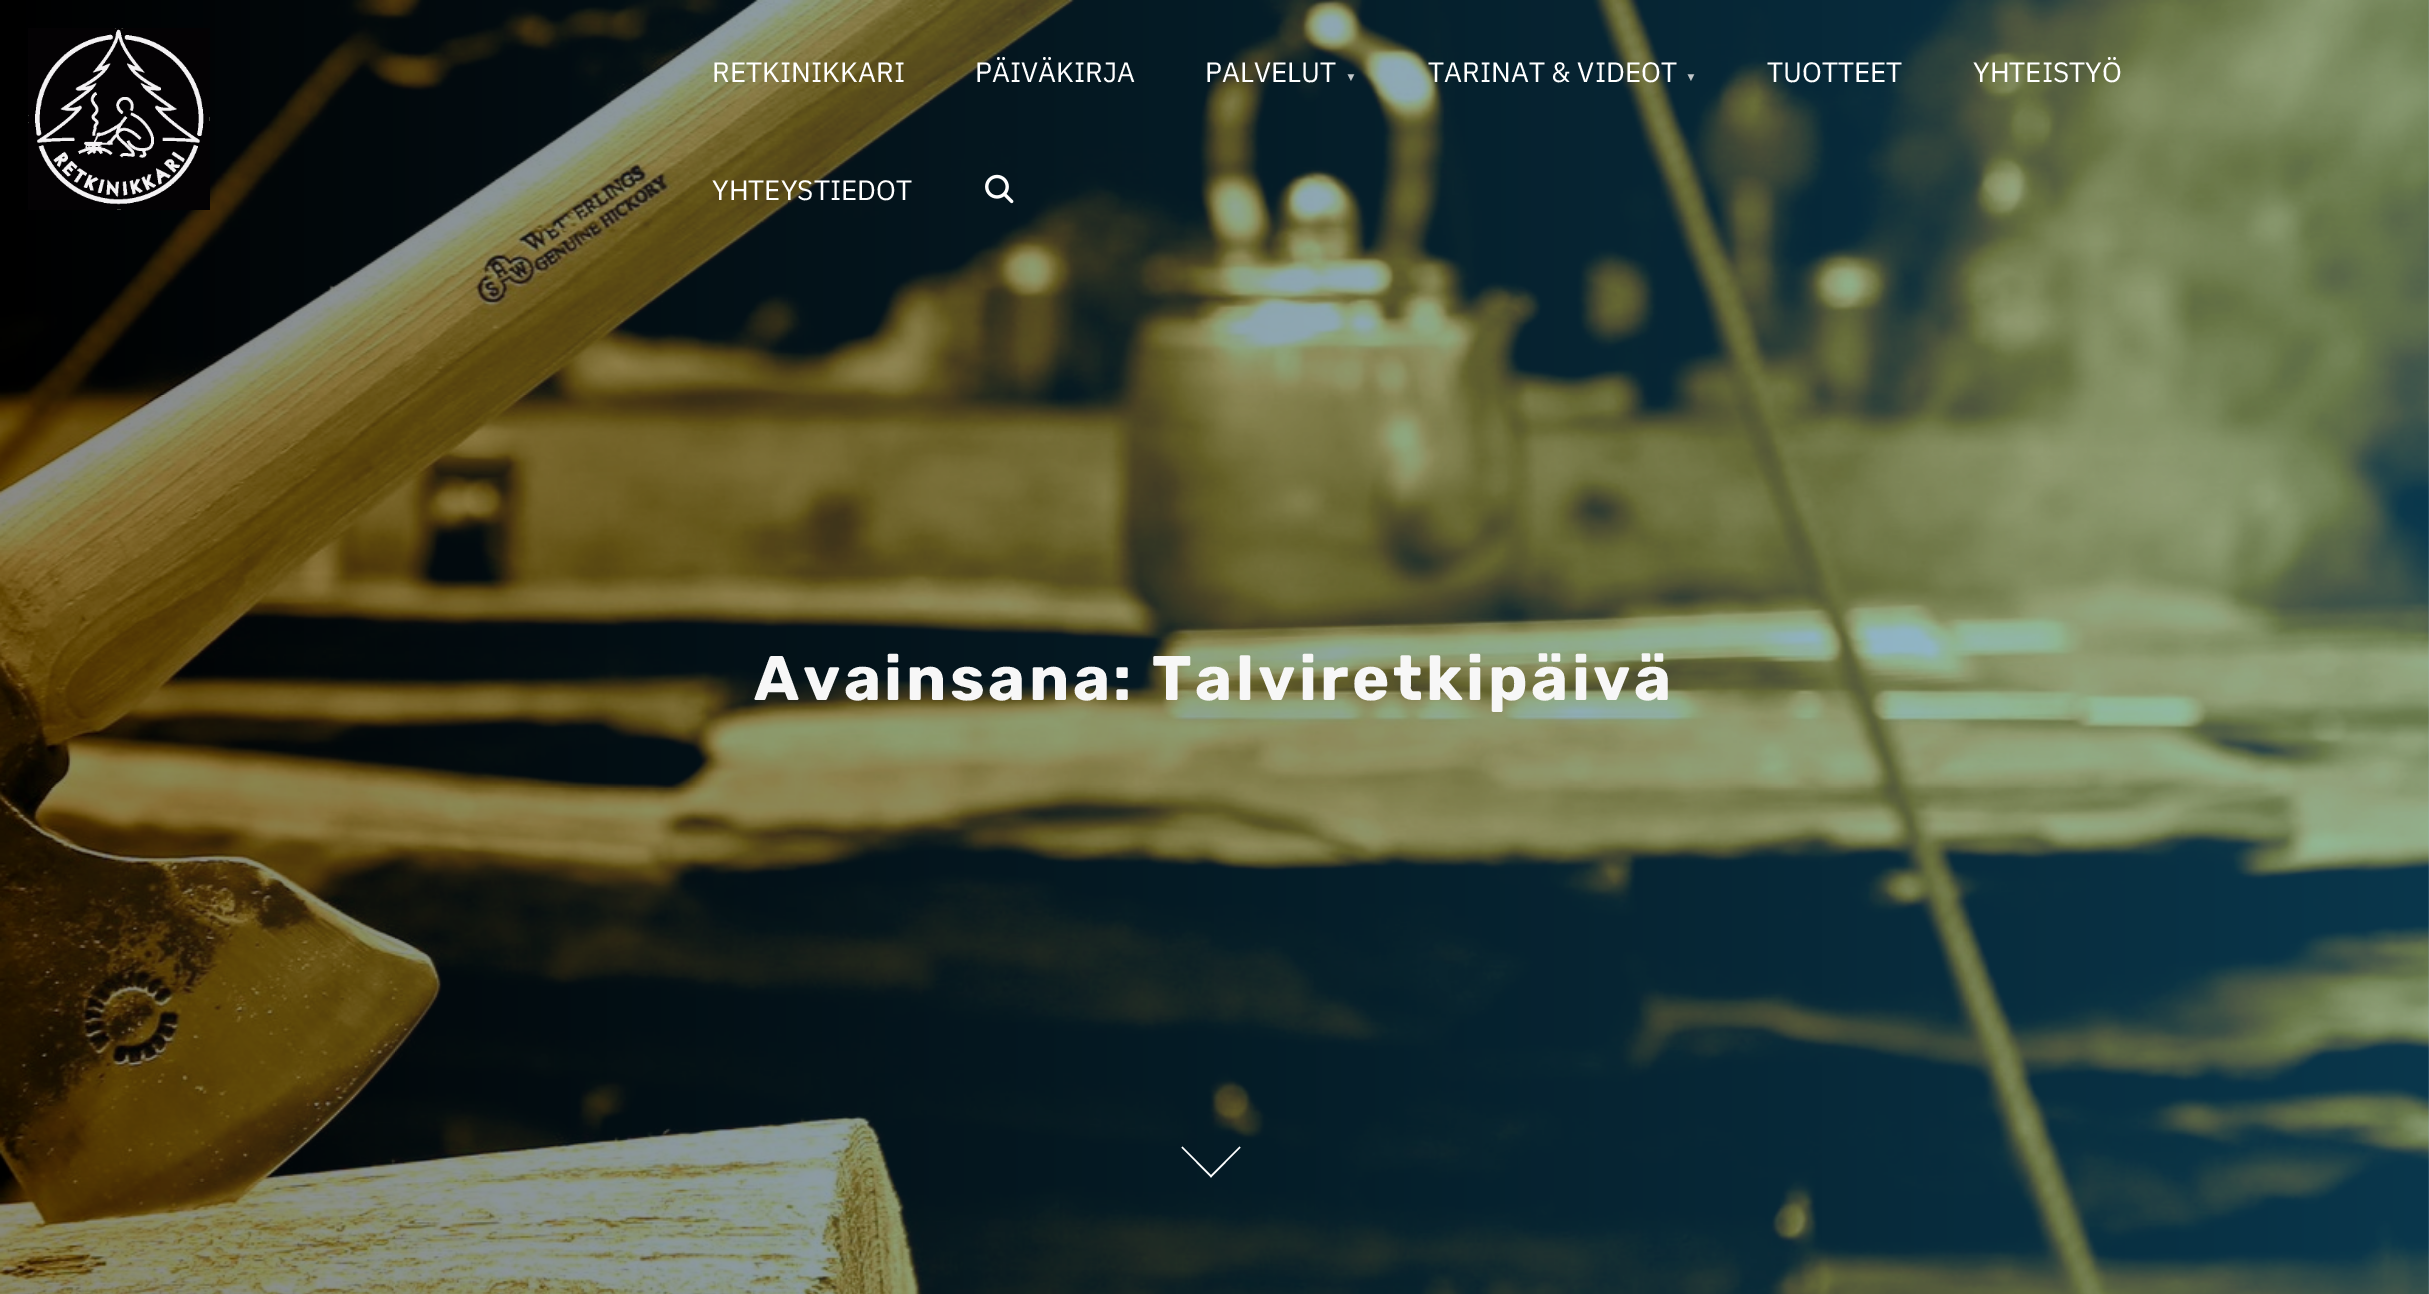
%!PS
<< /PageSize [2429 1294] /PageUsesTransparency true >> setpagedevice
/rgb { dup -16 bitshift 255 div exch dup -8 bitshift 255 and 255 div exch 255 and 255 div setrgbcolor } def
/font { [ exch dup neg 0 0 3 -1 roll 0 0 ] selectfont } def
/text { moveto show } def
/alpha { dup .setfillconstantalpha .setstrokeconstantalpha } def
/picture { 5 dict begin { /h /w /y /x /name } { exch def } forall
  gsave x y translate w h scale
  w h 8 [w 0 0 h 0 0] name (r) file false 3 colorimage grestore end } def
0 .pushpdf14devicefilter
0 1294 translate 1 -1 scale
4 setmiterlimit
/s1 { /IBMPlexSans-Regular 28 font 16#FFFFFF rgb } def
/s2 { /LiberationSerif-Regular 12 font 16#C1C7CA rgb } def
16#FFFFFF rgb
0 0 2429 1294 rectfill
(pic3.raw) 0 0 2429 1294 picture
0.4 alpha
gsave 0 0 moveto 2429 0 lineto 2429 1294 lineto 0 1294 lineto closepath clip newpath
<< /ShadingType 2 /ColorSpace /DeviceRGB /Coords [2429 648 0 647] /Extend [true true] /Function << /FunctionType 2 /Domain [0 1] /C0 [0.09 0.533 0.741] /C1 [0 0 0] /N 1 >> >> shfill grestore
1 alpha
(pic1.raw) 28 28 182 182 picture
s1
(RETKINIKKARI) 712 82 text
(PÄIVÄKIRJA) 975 82 text
(PALVELUT) 1205 82 text
s2
(▼) 1345 81 text
s1
(TARINAT & VIDEOT) 1428 82 text
s2
(▼) 1685 81 text
s1
(TUOTTEET) 1767 82 text
(YHTEISTYÖ) 1973 82 text
(YHTEYSTIEDOT) 712 200 text
(pic2.raw) 985 174 29 30 picture
/Rubik-Bold 63 font
16#F7F7F7 rgb
754 700 moveto 3.5 0 (Avainsana: Talviretkipäivä) ashow
16#FFFFFF rgb
1210 1176 moveto 1239.5 1146.5 lineto 1240.5 1147.5 lineto 1211 1177.5 lineto closepath fill
1181.5 1147.5 moveto 1182.5 1146.5 lineto 1212 1176 lineto 1211 1177.5 lineto closepath fill
.poppdf14devicefilter showpage
